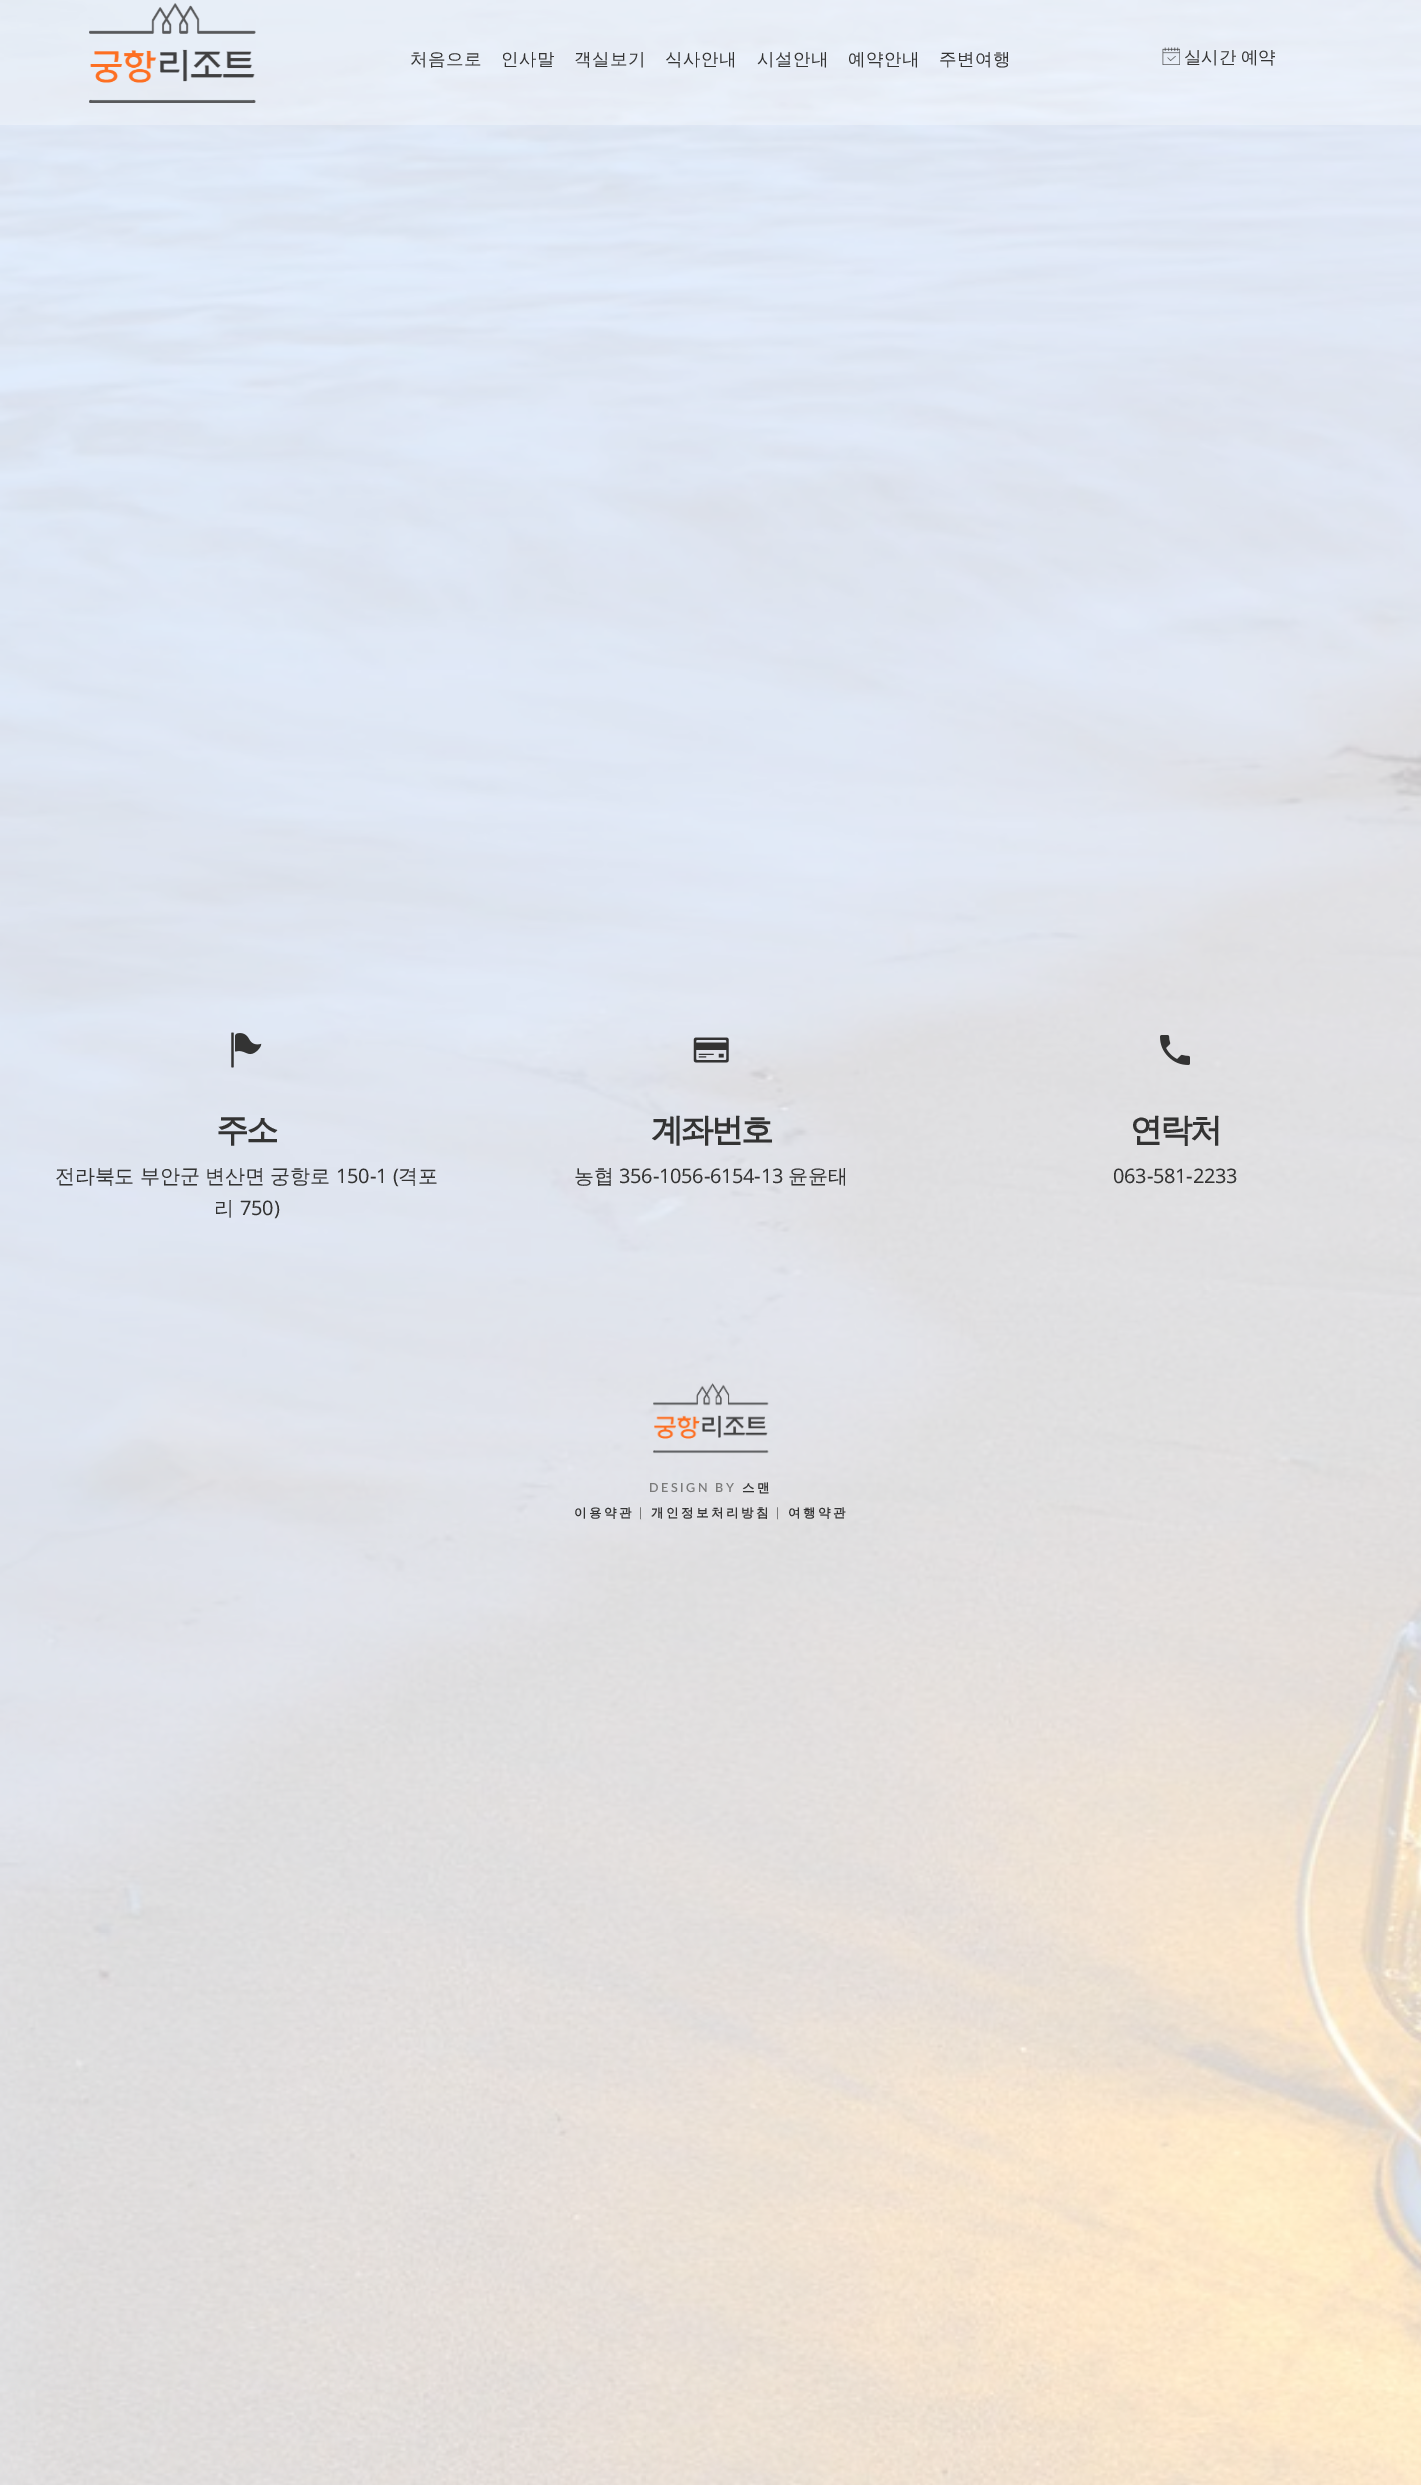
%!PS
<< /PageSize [1421 2485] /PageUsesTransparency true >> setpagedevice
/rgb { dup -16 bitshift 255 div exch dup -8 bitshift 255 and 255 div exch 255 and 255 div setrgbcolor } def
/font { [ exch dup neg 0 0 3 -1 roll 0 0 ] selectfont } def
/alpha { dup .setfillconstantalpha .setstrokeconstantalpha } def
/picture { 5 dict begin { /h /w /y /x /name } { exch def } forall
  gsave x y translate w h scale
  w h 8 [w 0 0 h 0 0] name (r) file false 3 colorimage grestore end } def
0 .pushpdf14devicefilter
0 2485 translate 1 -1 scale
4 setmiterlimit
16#FFFFFF rgb
0 0 1421 2485 rectfill
(pic1.raw) 0 0 1421 2485 picture
0.3 alpha
0 0 1421 125 rectfill
1 alpha
(pic2.raw) 89 3 167 100 picture
/WenQuanYiZenHei-Medium 17.5 font
16#333333 rgb
410 65 moveto 0.5 0 (처음으로) ashow
501 65 moveto 0.5 0 (인사말) ashow
574 65 moveto 0.5 0 (객실보기) ashow
665 65 moveto 0.5 0 (식사안내) ashow
757 65 moveto 0.5 0 (시설안내) ashow
848 65 moveto 0.5 0 (예약안내) ashow
939 65 moveto 0.5 0 (주변여행) ashow
(pic3.raw) 1162 47 18 18 picture
1184 63 moveto -0.25 0 (실시간 예약) ashow
(pic4.raw) 231 1032 31 36 picture
/WenQuanYiZenHei-Bold 32.5 font
216 1141 moveto -2.5 0 (주소) ashow
/WenQuanYiZenHei-Medium 20 font
55 1183 moveto -0.25 0 (전라북도) ashow
140 1183 moveto -0.25 0 (부안군) ashow
205 1183 moveto -0.25 0 (변산면) ashow
270 1183 moveto -0.25 0 (궁항로) ashow
/NotoSans-Regular 20 font
336 1183 moveto 1 0 32 -0.25 0 (150-1 \() awidthshow
/WenQuanYiZenHei-Medium 20 font
398 1183 moveto -0.25 0 (격포) ashow
214 1215 moveto -0.25 0 (리) ashow
/NotoSans-Regular 20 font
240 1215 moveto -0.25 0 (750\)) ashow
(pic5.raw) 693 1037 36 26 picture
/WenQuanYiZenHei-Bold 32.5 font
651 1141 moveto -2.5 0 (계좌번호) ashow
/WenQuanYiZenHei-Medium 20 font
574 1183 moveto -0.25 0 (농협) ashow
/NotoSans-Regular 20 font
619 1183 moveto -0.25 0 (356-1056-6154-13) ashow
/WenQuanYiZenHei-Medium 20 font
788 1183 moveto -0.25 0 (윤윤태) ashow
(pic6.raw) 1160 1035 30 30 picture
/WenQuanYiZenHei-Bold 32.5 font
1130 1141 moveto -2.5 0 (연락처) ashow
/NotoSans-Regular 20 font
1113 1183 moveto -0.25 0 (063-581-2233) ashow
(pic7.raw) 653 1383 116 71 picture
/Lato-SemiBold 12.5 font
16#7A7A7A rgb
649 1492 moveto 2.5 0 (DESIGN BY) ashow
/WenQuanYiZenHei-Bold 12.5 font
16#333333 rgb
742 1492 moveto 2.5 0 (스맨) ashow
574 1517 moveto 2.5 0 (이용약관) ashow
/Lato-SemiBold 12.5 font
16#7A7A7A rgb
639 1517 moveto 2.5 0 (|) ashow
/WenQuanYiZenHei-Bold 12.5 font
16#333333 rgb
651 1517 moveto 2.5 0 (개인정보처리방침) ashow
/Lato-SemiBold 12.5 font
16#7A7A7A rgb
776 1517 moveto 2.5 0 (|) ashow
/WenQuanYiZenHei-Bold 12.5 font
16#333333 rgb
788 1517 moveto 2.5 0 (여행약관) ashow
.poppdf14devicefilter showpage
